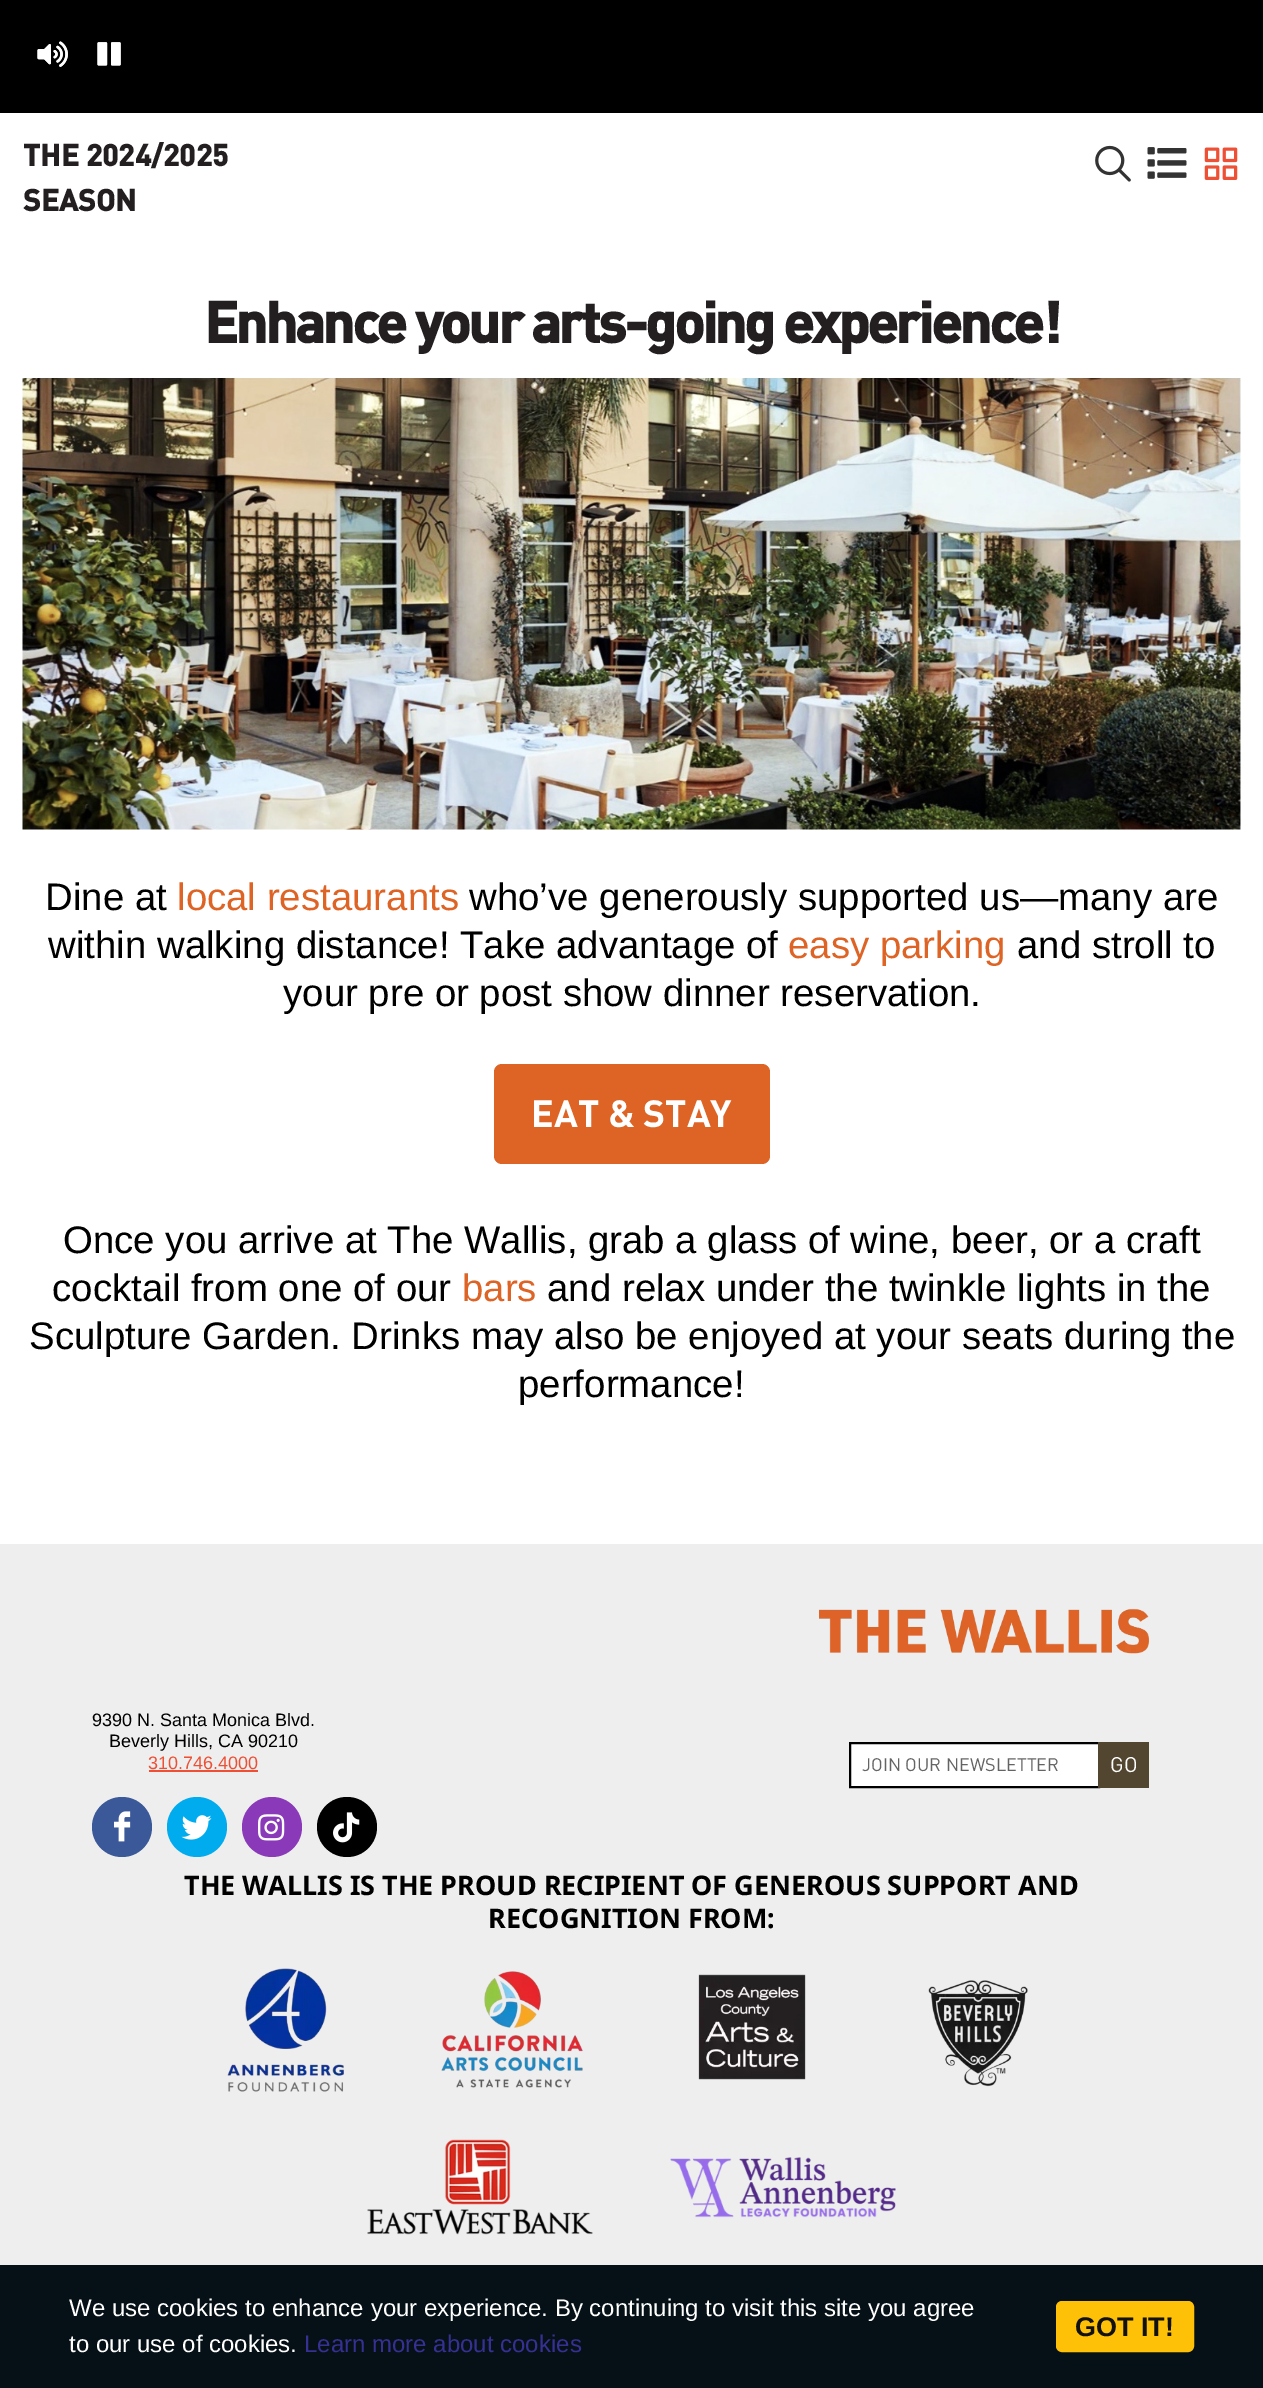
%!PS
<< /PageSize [1263 2388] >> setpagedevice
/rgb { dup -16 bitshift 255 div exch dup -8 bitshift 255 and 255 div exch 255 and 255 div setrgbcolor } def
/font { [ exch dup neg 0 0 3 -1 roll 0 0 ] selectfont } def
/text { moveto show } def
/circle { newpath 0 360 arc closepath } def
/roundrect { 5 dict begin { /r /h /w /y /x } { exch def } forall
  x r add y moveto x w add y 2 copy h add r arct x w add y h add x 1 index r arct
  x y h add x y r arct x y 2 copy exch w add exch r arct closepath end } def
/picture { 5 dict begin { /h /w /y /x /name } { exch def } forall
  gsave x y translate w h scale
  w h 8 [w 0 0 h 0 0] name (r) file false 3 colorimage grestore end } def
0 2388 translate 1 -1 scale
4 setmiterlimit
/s1 { /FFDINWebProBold-Bold 30 font 16#231F20 rgb } def
/s2 { /LiberationSans-Regular 38.4 font 16#000000 rgb } def
/s3 { /LiberationSans-Regular 38.4 font 16#DE6426 rgb } def
/s4 { /FFDINWebProBold-Regular 37.5 font 16#FFFFFF rgb } def
/s5 { /LiberationSans-Regular 18 font 16#000000 rgb } def
/s6 { /LiberationSans-Regular 18 font 16#EE5035 rgb } def
/s7 { /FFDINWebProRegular-Regular 18 font 16#646464 rgb } def
/s8 { /FFDINWebProRegular-Regular 21 font 16#FFFFFF rgb } def
/s9 { /NotoSans-Bold 27 font 16#000000 rgb } def
/s10 { /LiberationSans-Regular 24 font 16#FFFFFF rgb } def
/s11 { /LiberationSans-Regular 24 font 16#363092 rgb } def
/s12 { /LiberationSans-Bold 27 font 16#111111 rgb } def
16#FFFFFF rgb
0 0 1263 2388 rectfill
16#000000 rgb
0 0 1263 113 rectfill
(pic1.raw) 37 41 31 26 picture
(pic2.raw) 97 42 24 24 picture
(pic3.raw) 37 41 31 26 picture
(pic4.raw) 97 42 24 24 picture
s1
(THE 2024/2025) 23 166 text
(SEASON) 23 211 text
(pic5.raw) 1095 145 36 37 picture
(pic6.raw) 1147 147 40 32 picture
(pic7.raw) 1204 147 34 33 picture
/FFDINWebProBold-Bold 57 font
204 343 moveto -3 0 (Enhance your arts-going experience!) ashow
(pic8.raw) 22 378 1219 452 picture
s2
(Dine at) 45 910 text
s3
(local restaurants) 177 910 text
s2
(who’ve generously supported us—many are) 469 910 text
(within walking distance! Take advantage of) 48 958 text
s3
(easy parking) 788 958 text
s2
(and stroll to) 1017 958 text
(your pre or post show dinner reservation.) 283 1006 text
16#DE6426 rgb
494 1064 276 100 8 roundrect fill
s4
(EAT & STAY) 531 1127 text
s2
(Once you arrive at The Wallis, grab a glass of wine, beer, or a craft) 63 1253 text
(cocktail from one of our) 52 1301 text
s3
(bars) 462 1301 text
s2
(and relax under the twinkle lights in the) 547 1301 text
(Sculpture Garden. Drinks may also be enjoyed at your seats during the) 29 1349 text
(performance!) 518 1397 text
16#EEEEEE rgb
0 1544 1263 721 rectfill
s5
(9390 N. Santa Monica Blvd.) 92 1726 text
(Beverly Hills, CA 90210) 109 1747 text
s6
(310.746.4000) 148 1769 text
149 1770 109 2 rectfill
16#3B5998 rgb
122 1827 30 circle fill
(pic9.raw) 114 1811 17 31 picture
16#00ACEE rgb
197 1827 30 circle fill
(pic10.raw) 181 1815 31 25 picture
16#8A3AB9 rgb
272 1827 30 circle fill
(pic11.raw) 258 1814 27 27 picture
16#000000 rgb
347 1827 30 circle fill
(pic12.raw) 333 1812 27 31 picture
(pic13.raw) 819 1608 330 46 picture
16#FFFFFF rgb
850 1743 moveto 1099 1743 lineto 1099 1787 lineto 850 1787 lineto closepath gsave fill grestore
16#000000 rgb
2 setlinewidth
stroke
s7
(JOIN OUR NEWSLETTER) 862 1771 text
16#534631 rgb
1098 1742 51 46 rectfill
s8
(GO) 1110 1772 text
s9
(THE WALLIS IS THE PROUD RECIPIENT OF GENEROUS SUPPORT AND) 184 1895 text
(RECOGNITION FROM:) 488 1928 text
(pic14.raw) 227 1968 117 124 picture
(pic15.raw) 441 1971 142 117 picture
(pic16.raw) 698 1974 108 106 picture
(pic17.raw) 928 1980 100 107 picture
(pic18.raw) 367 2139 226 96 picture
(pic19.raw) 670 2157 226 61 picture
16#061117 rgb
0 2265 1263 123 rectfill
s10
(We use cookies to enhance your experience. By continuing to visit this site you agree) 69 2316 text
(to our use of cookies.) 69 2352 text
s11
(Learn more about cookies) 304 2352 text
16#FFC107 rgb
1057 2302 136 49 5 roundrect gsave fill grestore
stroke
s12
(GOT IT!) 1075 2336 text
showpage
